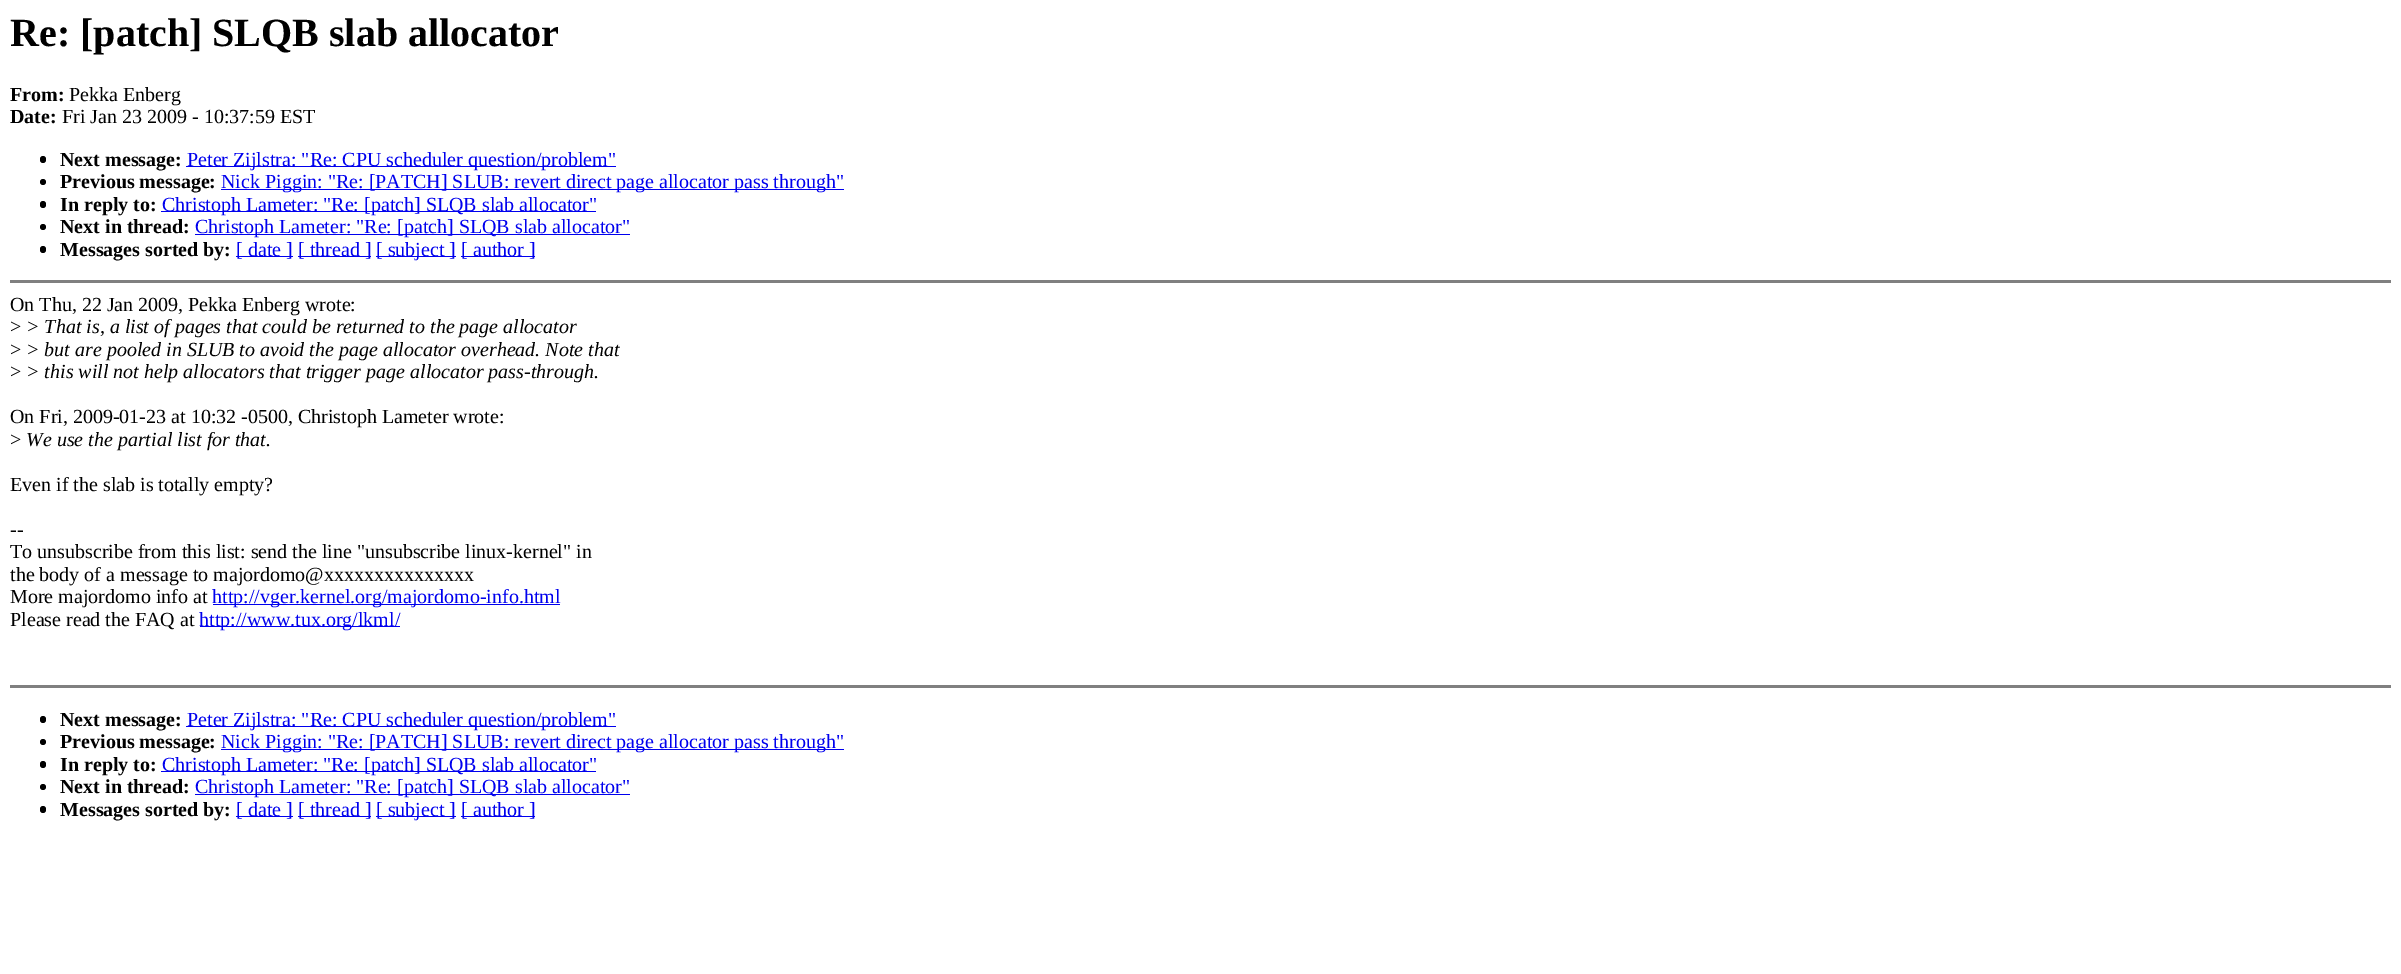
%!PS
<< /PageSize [2401 974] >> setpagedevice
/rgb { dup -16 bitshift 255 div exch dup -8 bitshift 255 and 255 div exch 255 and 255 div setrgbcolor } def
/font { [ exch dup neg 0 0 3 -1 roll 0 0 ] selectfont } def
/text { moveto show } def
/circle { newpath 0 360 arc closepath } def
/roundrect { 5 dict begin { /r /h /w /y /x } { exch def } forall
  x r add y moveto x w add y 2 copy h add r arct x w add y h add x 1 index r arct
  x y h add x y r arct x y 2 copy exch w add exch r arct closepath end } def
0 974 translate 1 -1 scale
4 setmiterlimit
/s1 { /LiberationSerif-Bold 40 font 16#000000 rgb } def
/s2 { /LiberationSerif-Bold 20 font 16#000000 rgb } def
/s3 { /LiberationSerif-Regular 20 font 16#000000 rgb } def
/s4 { /LiberationSerif-Regular 20 font 16#0000EE rgb } def
/s5 { /LiberationSerif-Italic 20 font 16#000000 rgb } def
16#FFFFFF rgb
0 0 2401 974 rectfill
s1
(Re: [patch] SLQB slab allocator) 10 46 text
s2
(From:) 10 101 text
s3
(Pekka Enberg) 69 101 text
s2
(Date:) 10 123 text
s3
(Fri Jan 23 2009 - 10:37:59 EST) 62 123 text
40 156 6 7 3 roundrect fill
s2
(Next message:) 60 166 text
16#0000EE rgb
186 166 430 1 rectfill
s4
(Peter Zijlstra: "Re: CPU scheduler question/problem") 187 166 text
16#000000 rgb
43 182 3 circle fill
s2
(Previous message:) 60 188 text
16#0000EE rgb
221 189 623 1 rectfill
s4
(Nick Piggin: "Re: [PATCH] SLUB: revert direct page allocator pass through") 221 188 text
16#000000 rgb
40 201 6 7 3 roundrect fill
s2
(In reply to:) 60 211 text
16#0000EE rgb
161 211 435 1 rectfill
s4
(Christoph Lameter: "Re: [patch] SLQB slab allocator") 162 211 text
16#000000 rgb
43 227 3 circle fill
s2
(Next in thread:) 60 233 text
16#0000EE rgb
195 234 435 1 rectfill
s4
(Christoph Lameter: "Re: [patch] SLQB slab allocator") 195 233 text
16#000000 rgb
40 246 6 7 3 roundrect fill
s2
(Messages sorted by:) 60 256 text
16#0000EE rgb
236 256 57 1 rectfill
s4
([ date ]) 236 256 text
298 256 73 1 rectfill
([ thread ]) 298 256 text
376 256 80 1 rectfill
([ subject ]) 376 256 text
461 256 74 1 rectfill
([ author ]) 461 256 text
16#808080 rgb
10 280 2381 3 rectfill
s3
(On Thu, 22 Jan 2009, Pekka Enberg wrote:) 10 311 text
(>) 10 333 text
s5
(> That is, a list of pages that could be returned to the page allocator) 26 333 text
s3
(>) 10 356 text
s5
(> but are pooled in SLUB to avoid the page allocator overhead. Note that) 26 356 text
s3
(>) 10 378 text
s5
(> this will not help allocators that trigger page allocator pass-through.) 26 378 text
s3
(On Fri, 2009-01-23 at 10:32 -0500, Christoph Lameter wrote:) 10 423 text
(>) 10 446 text
s5
(We use the partial list for that.) 26 446 text
s3
(Even if the slab is totally empty?) 10 491 text
(--) 10 536 text
(To unsubscribe from this list: send the line "unsubscribe linux-kernel" in) 10 558 text
(the body of a message to majordomo@xxxxxxxxxxxxxxx) 10 581 text
(More majordomo info at) 10 603 text
16#0000EE rgb
213 604 347 1 rectfill
(http://vger.kernel.org/majordomo-info.html) 212 603 text
s3
(Please read the FAQ at) 10 626 text
16#0000EE rgb
200 626 200 1 rectfill
(http://www.tux.org/lkml/) 199 626 text
16#808080 rgb
10 685 2381 3 rectfill
16#000000 rgb
40 716 6 7 3 roundrect fill
s2
(Next message:) 60 726 text
16#0000EE rgb
186 726 430 1 rectfill
s4
(Peter Zijlstra: "Re: CPU scheduler question/problem") 187 726 text
16#000000 rgb
43 742 3 circle fill
s2
(Previous message:) 60 748 text
16#0000EE rgb
221 749 623 1 rectfill
s4
(Nick Piggin: "Re: [PATCH] SLUB: revert direct page allocator pass through") 221 748 text
16#000000 rgb
40 761 6 7 3 roundrect fill
s2
(In reply to:) 60 771 text
16#0000EE rgb
161 771 435 1 rectfill
s4
(Christoph Lameter: "Re: [patch] SLQB slab allocator") 162 771 text
16#000000 rgb
43 787 3 circle fill
s2
(Next in thread:) 60 793 text
16#0000EE rgb
195 794 435 1 rectfill
s4
(Christoph Lameter: "Re: [patch] SLQB slab allocator") 195 793 text
16#000000 rgb
40 806 6 7 3 roundrect fill
s2
(Messages sorted by:) 60 816 text
16#0000EE rgb
236 816 57 1 rectfill
s4
([ date ]) 236 816 text
298 816 73 1 rectfill
([ thread ]) 298 816 text
376 816 80 1 rectfill
([ subject ]) 376 816 text
461 816 74 1 rectfill
([ author ]) 461 816 text
showpage
